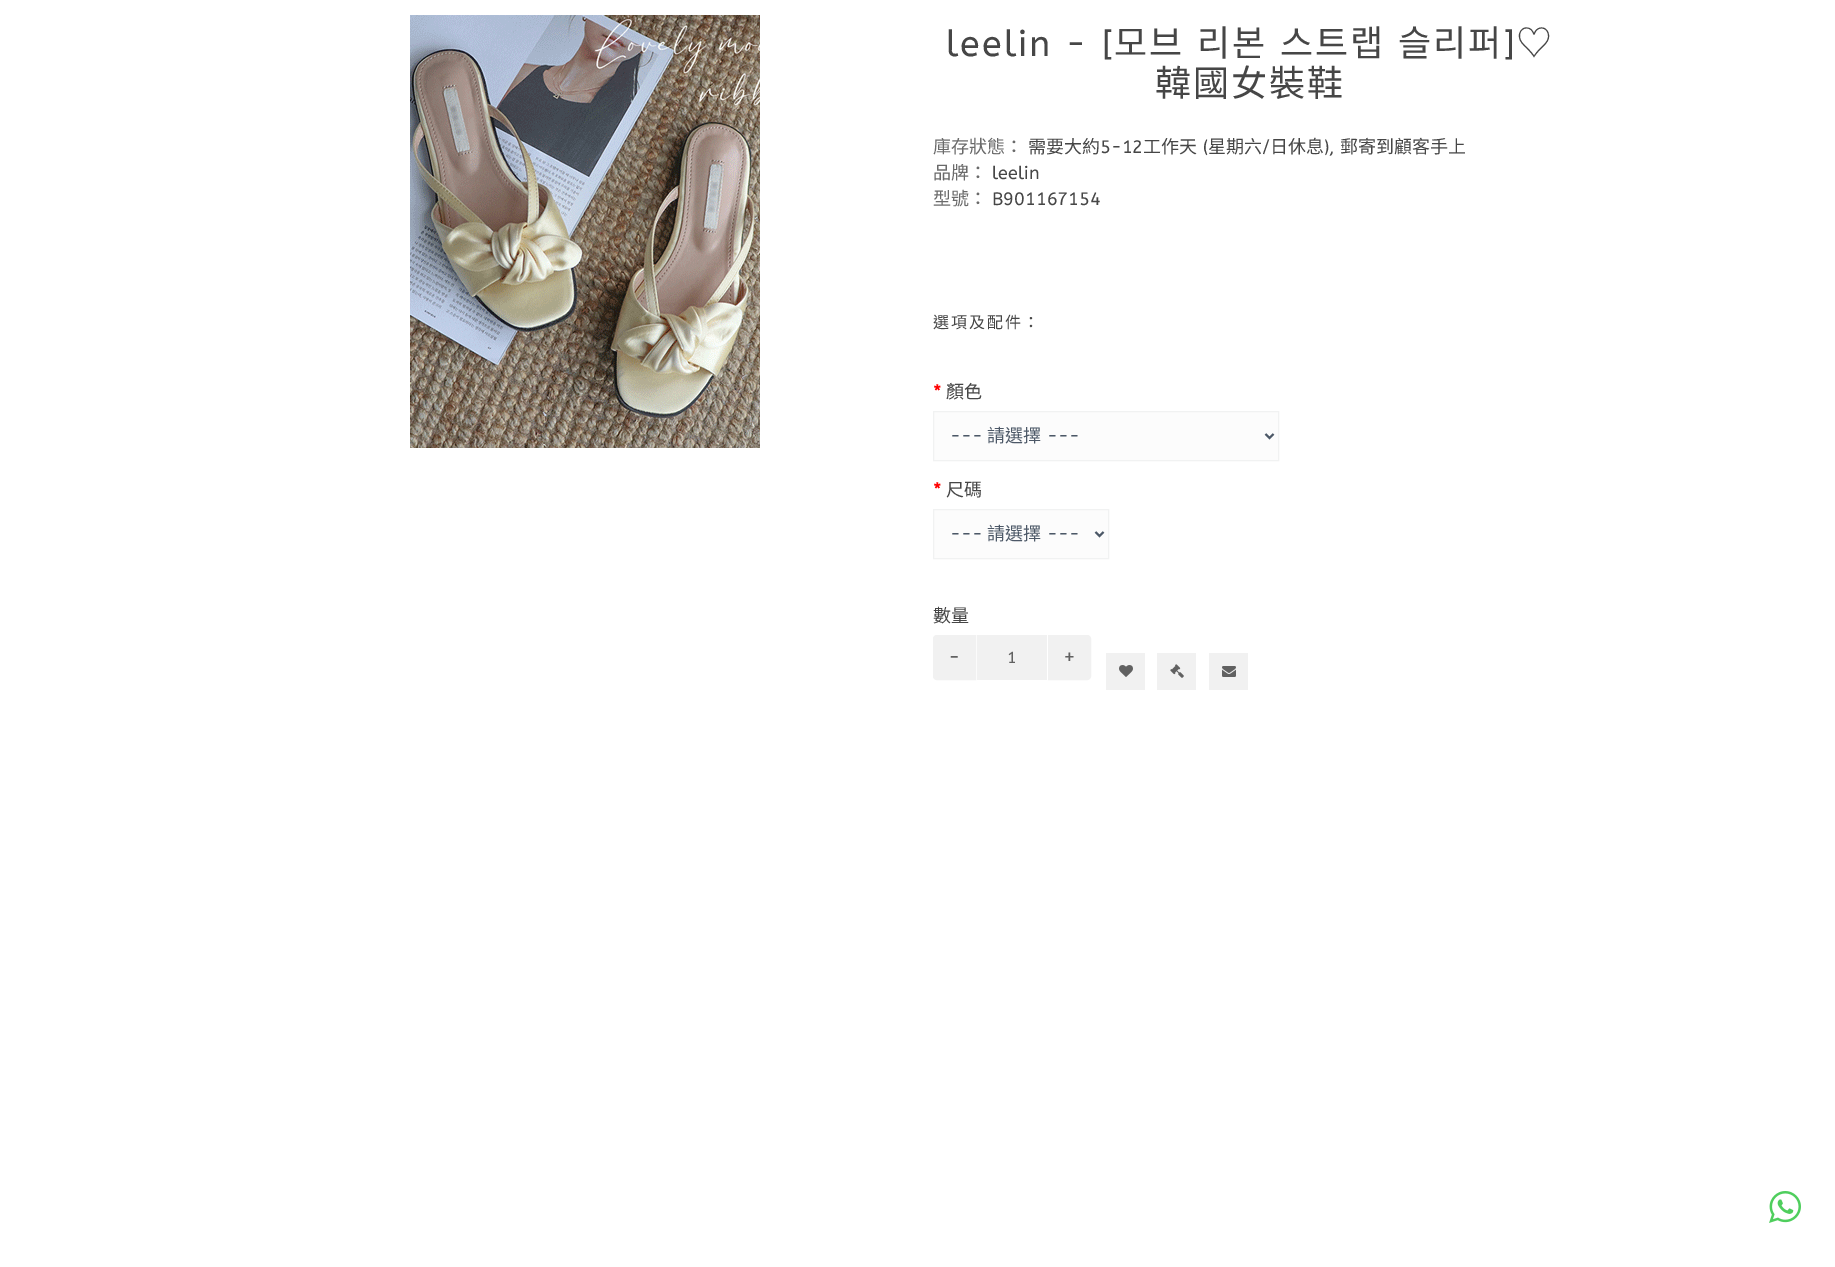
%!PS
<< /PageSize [1835 1267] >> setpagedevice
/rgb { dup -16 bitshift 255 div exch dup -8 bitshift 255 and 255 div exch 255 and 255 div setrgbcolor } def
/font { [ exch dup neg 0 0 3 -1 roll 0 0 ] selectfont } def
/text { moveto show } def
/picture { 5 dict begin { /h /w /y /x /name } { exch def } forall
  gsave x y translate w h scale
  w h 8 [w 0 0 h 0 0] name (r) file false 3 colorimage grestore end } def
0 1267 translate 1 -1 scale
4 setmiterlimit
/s1 { /NotoSansCJKHK-Regular 18 font 16#6A6A6A rgb } def
/s2 { /NotoSansCJKHK-Regular 18 font 16#464646 rgb } def
/s3 { /ABeeZee-Regular 18 font 16#464646 rgb } def
/s4 { /ABeeZee-Bold 18 font 16#FF0000 rgb } def
/s5 { /ABeeZee-Regular 18 font 16#4C5867 rgb } def
/s6 { /NotoSansCJKHK-Regular 18 font 16#4C5867 rgb } def
/s7 { /ABeeZee-Regular 21 font 16#616161 rgb } def
/s8 { /ABeeZee-Regular 16 font 16#616161 rgb } def
16#FFFFFF rgb
0 0 1835 1267 rectfill
(pic1.raw) 410 15 350 433 picture
/ABeeZee-Regular 36 font
16#464646 rgb
946 56 moveto 2 0 (leelin - [) ashow
/NotoSansCJKHK-Regular 36 font
1114 56 moveto 2 0 (모브) ashow
1197 56 moveto 2 0 (리본) ashow
1280 56 moveto 2 0 (스트랩) ashow
1398 56 moveto 2 0 (슬리퍼) ashow
/ABeeZee-Regular 36 font
1504 56 moveto 2 0 (]) ashow
/NotoSansCJKHK-Regular 36 font
1516 56 moveto 2 0 (♡) ashow
1155 96 moveto 2 0 (韓國女裝鞋) ashow
s1
(庫存狀態：) 933 153 text
s2
(需要大約) 1028 153 text
s3
(5-12) 1100 153 text
s2
(工作天) 1143 153 text
s3
(\() 1203 153 text
s2
(星期六) 1208 153 text
s3
(/) 1262 153 text
s2
(日休息) 1270 153 text
s3
(\),) 1324 153 text
s2
(郵寄到顧客手上) 1340 153 text
s1
(品牌：) 933 179 text
s3
(leelin) 992 179 text
s1
(型號：) 933 205 text
s3
(B901167154) 992 205 text
/NotoSansCJKHK-Regular 16 font
933 328 moveto 2 0 (選項及配件：) ashow
s4
(*) 933 398 text
s2
(顏色) 946 398 text
16#FCFCFC rgb
933.5 411.5 moveto 1278.5 411.5 lineto 1278.5 460.5 lineto 933.5 460.5 lineto closepath gsave fill grestore
16#F1F2F2 rgb
stroke
16#4C5867 rgb
2 setlinewidth
1265.5 434 moveto 1269.5 438 lineto 1273.5 434 lineto stroke
s5
(---) 950 442 text
s6
(請選擇) 987 442 text
s5
(---) 1047 442 text
s4
(*) 933 496 text
s2
(尺碼) 946 496 text
16#FCFCFC rgb
933.5 509.5 moveto 1108.5 509.5 lineto 1108.5 558.5 lineto 933.5 558.5 lineto closepath gsave fill grestore
16#F1F2F2 rgb
1 setlinewidth
stroke
16#4C5867 rgb
2 setlinewidth
1095.5 532 moveto 1099.5 536 lineto 1103.5 532 lineto stroke
s5
(---) 950 540 text
s6
(請選擇) 987 540 text
s5
(---) 1047 540 text
s2
(數量) 933 622 text
16#F1F1F1 rgb
937 636.5 moveto 974.5 636.5 lineto 974.5 678.5 lineto 937 678.5 lineto 935.5 678.5 934.5 677.5 934.5 676 curveto 934.5 639 lineto 934.5 637.5 935.5 636.5 937 636.5 curveto closepath gsave fill grestore
3 setlinewidth
stroke
s7
(-) 948 664 text
16#F1F1F1 rgb
977 635 70 45 rectfill
s8
(1) 1007 663 text
16#F1F1F1 rgb
1049.5 636.5 moveto 1087 636.5 lineto 1088.5 636.5 1089.5 637.5 1089.5 639 curveto 1089.5 676 lineto 1089.5 677.5 1088.5 678.5 1087 678.5 curveto 1049.5 678.5 lineto closepath gsave fill grestore
stroke
s7
(+) 1063 664 text
16#F1F1F1 rgb
1106 653 39 37 rectfill
(pic2.raw) 1119 665 14 12 picture
1157 653 39 37 rectfill
(pic3.raw) 1170 664 14 14 picture
1209 653 39 37 rectfill
(pic4.raw) 1222 666 14 11 picture
(pic5.raw) 1769 1191 32 32 picture
showpage
